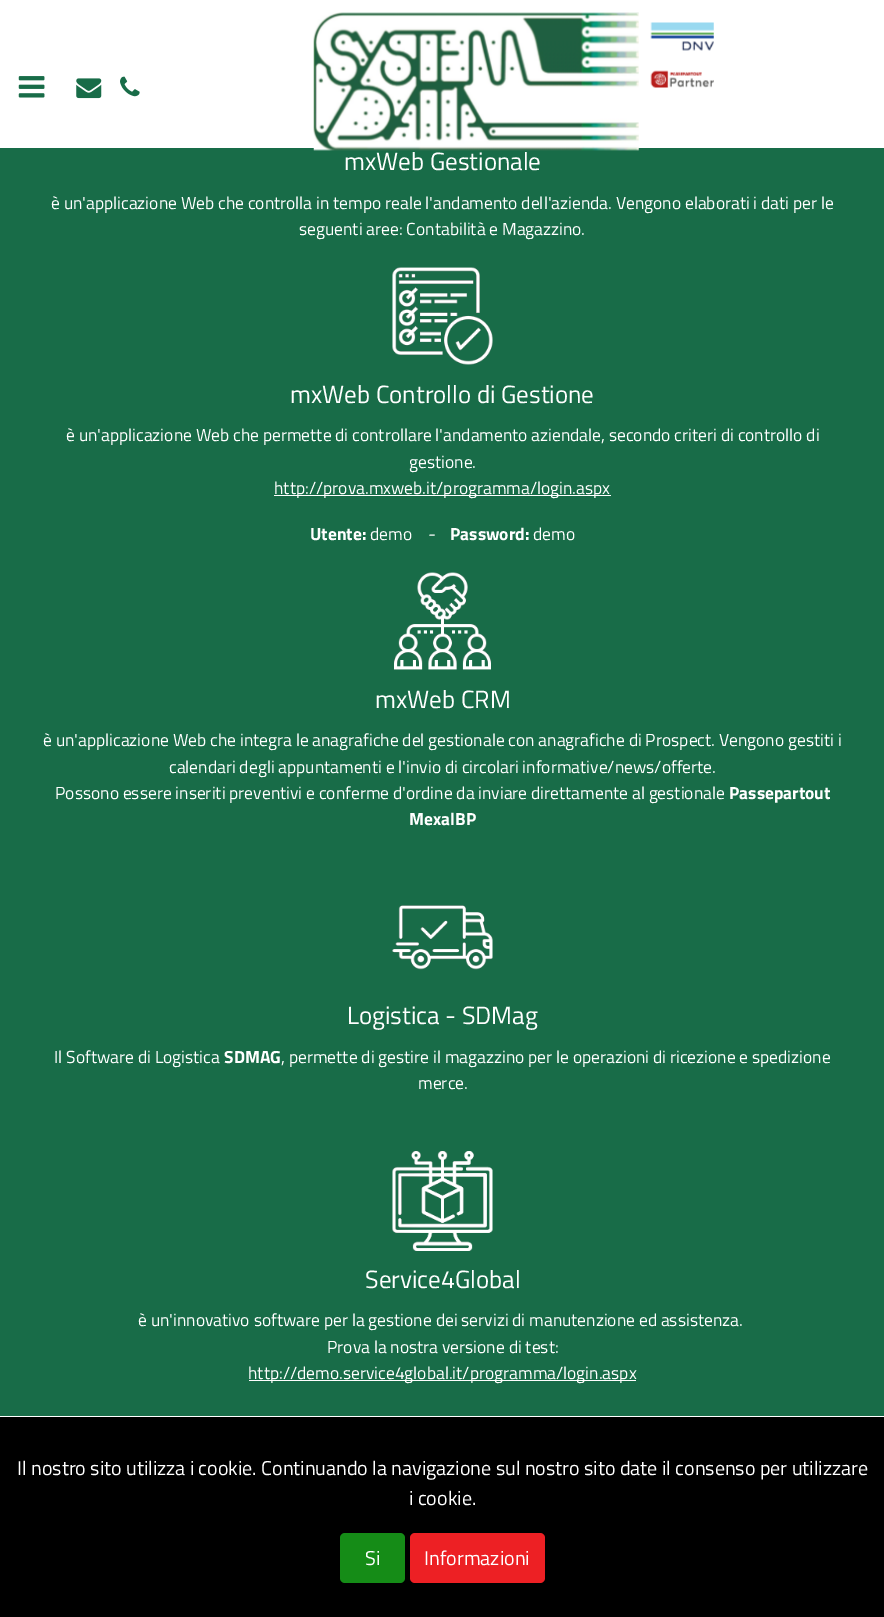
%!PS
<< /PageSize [884 1617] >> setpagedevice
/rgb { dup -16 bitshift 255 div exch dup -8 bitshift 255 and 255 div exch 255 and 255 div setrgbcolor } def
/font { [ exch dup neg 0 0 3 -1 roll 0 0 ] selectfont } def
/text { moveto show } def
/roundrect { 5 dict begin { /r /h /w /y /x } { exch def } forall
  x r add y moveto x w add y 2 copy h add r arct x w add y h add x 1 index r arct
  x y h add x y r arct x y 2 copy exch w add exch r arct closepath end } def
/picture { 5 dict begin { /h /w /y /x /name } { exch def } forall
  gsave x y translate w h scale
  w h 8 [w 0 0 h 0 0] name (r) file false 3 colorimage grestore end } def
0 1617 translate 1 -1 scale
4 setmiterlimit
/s1 { /TitilliumWeb-Regular 25 font 16#FFFFFF rgb } def
/s2 { /TitilliumWeb-Regular 17.5 font 16#FFFFFF rgb } def
/s3 { /TitilliumWeb-Bold 17.5 font 16#FFFFFF rgb } def
/s4 { /TitilliumWeb-Italic 17.5 font 16#FFFFFF rgb } def
/s5 { /TitilliumWeb-Regular 20 font 16#FFFFFF rgb } def
16#186C48 rgb
0 0 884 1617 rectfill
16#FFFFFF rgb
0 0 884 148 rectfill
(pic1.raw) 18 76 27 22 picture
(pic2.raw) 76 78 26 21 picture
(pic3.raw) 120 76 20 21 picture
(pic4.raw) 313 12 326 139 picture
(pic5.raw) 650 22 64 29 picture
(pic6.raw) 650 70 64 18 picture
s1
(mxWeb Gestionale) 344 170 text
s2
(è un'applicazione Web che controlla in tempo reale l'andamento dell'azienda. Vengono elaborati i dati per le) 51 209 text
(seguenti aree: Contabilità e Magazzino.) 299 235 text
(pic7.raw) 392 267 101 98 picture
s1
(mxWeb Controllo di Gestione) 290 403 text
s2
(è un'applicazione Web che permette di controllare l'andamento aziendale, secondo criteri di controllo di) 66 441 text
(gestione.) 409 468 text
274 495 337 1 rectfill
(http://prova.mxweb.it/programma/login.aspx) 274 494 text
s3
(Utente:) 310 540 text
s2
(demo) 370 540 text
s4
(-) 427 540 text
s3
(Password:) 450 540 text
s2
(demo) 533 540 text
(pic8.raw) 394 572 97 98 picture
s1
(mxWeb CRM) 375 708 text
s2
(è un'applicazione Web che integra le anagrafiche del gestionale con anagrafiche di Prospect. Vengono gestiti i) 43 746 text
(calendari degli appuntamenti e l'invio di circolari informative/news/offerte.) 169 773 text
(Possono essere inseriti preventivi e conferme d'ordine da inviare direttamente al gestionale) 55 799 text
s3
(Passepartout) 729 799 text
(MexalBP) 409 825 text
(pic9.raw) 392 905 101 65 picture
s1
(Logistica - SDMag) 347 1024 text
s2
(Il Software di Logistica) 54 1063 text
s3
(SDMAG) 224 1063 text
s2
(, permette di gestire il magazzino per le operazioni di ricezione e spedizione) 281 1063 text
(merce.) 418 1089 text
(pic10.raw) 392 1151 101 100 picture
s1
(Service4Global) 365 1288 text
s2
(è un'innovativo software per la gestione dei servizi di manutenzione ed assistenza.) 138 1326 text
(Prova la nostra versione di test:) 327 1353 text
249 1380 387 1 rectfill
(http://demo.service4global.it/programma/login.aspx) 248 1379 text
16#000000 rgb
0 1417 884 200 rectfill
16#FFFFFF rgb
0 1416 884 1 rectfill
s5
(Il nostro sito utilizza i cookie. Continuando la navigazione sul nostro sito date il consenso per utilizzare) 17 1475 text
(i cookie.) 409 1505 text
16#158C17 rgb
340 1533 65 50 5 roundrect fill
s5
(Si) 365 1565 text
16#ED2024 rgb
410 1533 135 50 5 roundrect fill
s5
(Informazioni) 424 1565 text
showpage
